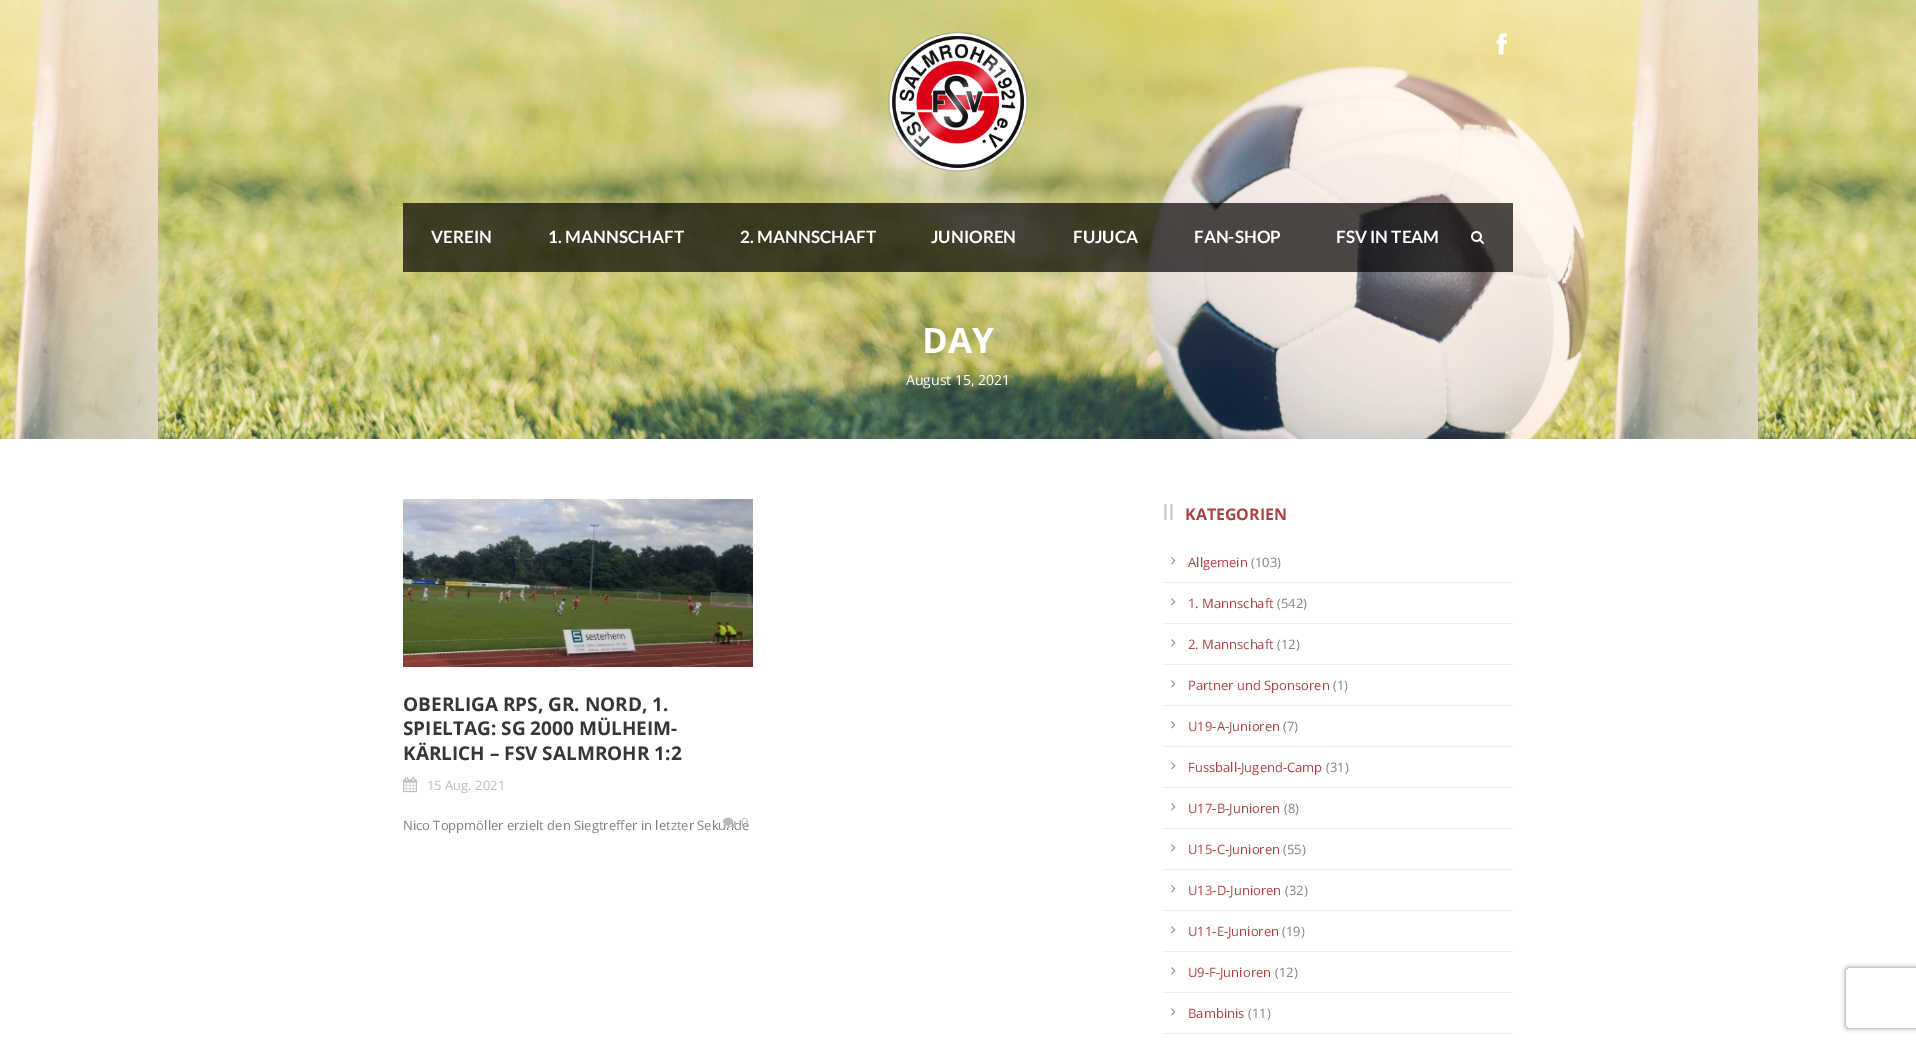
%!PS
<< /PageSize [1916 1042] /PageUsesTransparency true >> setpagedevice
/rgb { dup -16 bitshift 255 div exch dup -8 bitshift 255 and 255 div exch 255 and 255 div setrgbcolor } def
/font { [ exch dup neg 0 0 3 -1 roll 0 0 ] selectfont } def
/text { moveto show } def
/alpha { dup .setfillconstantalpha .setstrokeconstantalpha } def
/roundrect { 5 dict begin { /r /h /w /y /x } { exch def } forall
  x r add y moveto x w add y 2 copy h add r arct x w add y h add x 1 index r arct
  x y h add x y r arct x y 2 copy exch w add exch r arct closepath end } def
/shadow { 12 dict begin { /a /b /q /h /w /y /x } { exch def } forall gsave /was 0 def
  9 -2 -9 { dup b mul 4 div /e exch def 1 sub .425 mul 2.718 exch exp 1 add a .99 .min exch div /now exch def
    1 1 now sub 1 was sub div sub alpha /was now def
    w h .min e 2 mul add 0 gt { x e sub y e sub w e 2 mul add h e 2 mul add
      q e add b .6 mul add w h .min 2 div e add .min 0 .max roundrect fill } if } for grestore end } def
/picture { 5 dict begin { /h /w /y /x /name } { exch def } forall
  gsave x y translate w h scale
  w h 8 [w 0 0 h 0 0] name (r) file false 3 colorimage grestore end } def
0 .pushpdf14devicefilter
0 1042 translate 1 -1 scale
4 setmiterlimit
/s1 { /Lato-Bold 17 font 16#FFFFFF rgb } def
/s2 { /OpenSans-Bold 35 font 16#FFFFFF rgb } def
/s3 { /OpenSans-Regular 14 font 16#FFFFFF rgb } def
/s4 { /OpenSans-Bold 19 font 16#363636 rgb } def
/s5 { /OpenSans-Regular 13 font 16#BABABA rgb } def
/s6 { /OpenSans-Regular 13 font 16#808080 rgb } def
/s7 { /OpenSans-Bold 16 font 16#AA4243 rgb } def
/s8 { /OpenSans-Regular 13 font 16#AA4243 rgb } def
16#FFFFFF rgb
0 0 1916 1042 rectfill
(pic1.raw) 0 0 1916 439 picture
(pic2.raw) 1496 33 11 22 picture
(pic3.raw) 888 32 140 140 picture
0.7 alpha
16#000000 rgb
403 203 1110 69 rectfill
1 alpha
s1
(VEREIN) 431 243 text
(1. MANNSCHAFT) 548 243 text
(2. MANNSCHAFT) 740 243 text
(JUNIOREN) 931 243 text
(FUJUCA) 1073 243 text
(FAN-SHOP) 1194 243 text
(FSV IN TEAM) 1336 243 text
(pic4.raw) 1471 231 13 13 picture
s2
(DAY) 922 353 text
s3
(August 15, 2021) 906 385 text
(pic5.raw) 403 499 350 168 picture
s4
(OBERLIGA RPS, GR. NORD, 1.) 403 711 text
(SPIELTAG: SG 2000 MÜLHEIM-) 403 735 text
(KÄRLICH – FSV SALMROHR 1:2) 403 760 text
(pic6.raw) 403 777 14 16 picture
s5
(15 Aug. 2021) 427 790 text
s6
(Nico Toppmöller erzielt den Siegtreffer in letzter Sekunde) 403 830 text
(pic7.raw) 723 817 13 11 picture
s5
(0) 741 827 text
/LiberationSans-Regular 22 font
16#C5C5C5 rgb
1163 520 moveto 1 0 (ll) ashow
s7
(KATEGORIEN) 1185 520 text
16#EEEEEE rgb
1163 582 350 1 rectfill
(pic8.raw) 1171 557 5 8 picture
s8
(Allgemein) 1188 567 text
s6
(\(103\)) 1251 567 text
16#EEEEEE rgb
1163 623 350 1 rectfill
(pic8.raw) 1171 598 5 8 picture
s8
(1. Mannschaft) 1188 608 text
s6
(\(542\)) 1277 608 text
16#EEEEEE rgb
1163 664 350 1 rectfill
(pic8.raw) 1171 639 5 8 picture
s8
(2. Mannschaft) 1188 649 text
s6
(\(12\)) 1277 649 text
16#EEEEEE rgb
1163 705 350 1 rectfill
(pic8.raw) 1171 680 5 8 picture
s8
(Partner und Sponsoren) 1188 690 text
s6
(\(1\)) 1333 690 text
16#EEEEEE rgb
1163 746 350 1 rectfill
(pic8.raw) 1171 721 5 8 picture
s8
(U19-A-Junioren) 1188 731 text
s6
(\(7\)) 1283 731 text
16#EEEEEE rgb
1163 787 350 1 rectfill
(pic8.raw) 1171 762 5 8 picture
s8
(Fussball-Jugend-Camp) 1188 772 text
s6
(\(31\)) 1326 772 text
16#EEEEEE rgb
1163 828 350 1 rectfill
(pic8.raw) 1171 803 5 8 picture
s8
(U17-B-Junioren) 1188 813 text
s6
(\(8\)) 1284 813 text
16#EEEEEE rgb
1163 869 350 1 rectfill
(pic8.raw) 1171 844 5 8 picture
s8
(U15-C-Junioren) 1188 854 text
s6
(\(55\)) 1283 854 text
16#EEEEEE rgb
1163 910 350 1 rectfill
(pic8.raw) 1171 885 5 8 picture
s8
(U13-D-Junioren) 1188 895 text
s6
(\(32\)) 1285 895 text
16#EEEEEE rgb
1163 951 350 1 rectfill
(pic8.raw) 1171 926 5 8 picture
s8
(U11-E-Junioren) 1188 936 text
s6
(\(19\)) 1282 936 text
16#EEEEEE rgb
1163 992 350 1 rectfill
(pic8.raw) 1171 967 5 8 picture
s8
(U9-F-Junioren) 1188 977 text
s6
(\(12\)) 1275 977 text
16#EEEEEE rgb
1163 1033 350 1 rectfill
(pic8.raw) 1171 1008 5 8 picture
s8
(Bambinis) 1188 1018 text
s6
(\(11\)) 1248 1018 text
gsave
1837 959 moveto 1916 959 lineto 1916 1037 lineto 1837 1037 lineto closepath 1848 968 moveto 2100 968 lineto 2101 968 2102 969 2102 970 curveto 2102 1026 lineto 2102 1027 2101 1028 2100 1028 curveto 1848 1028 lineto 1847 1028 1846 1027 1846 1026 curveto 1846 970 lineto 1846 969 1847 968 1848 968 curveto closepath eoclip newpath
1846 968 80 60 2 2.5 1 shadow
grestore
.poppdf14devicefilter showpage
